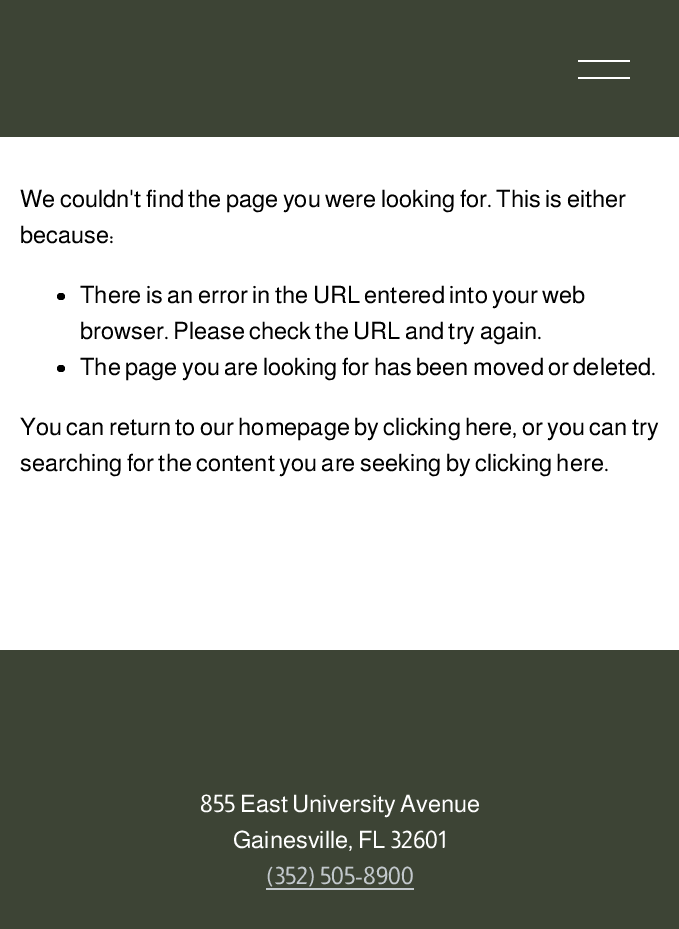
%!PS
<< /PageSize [679 929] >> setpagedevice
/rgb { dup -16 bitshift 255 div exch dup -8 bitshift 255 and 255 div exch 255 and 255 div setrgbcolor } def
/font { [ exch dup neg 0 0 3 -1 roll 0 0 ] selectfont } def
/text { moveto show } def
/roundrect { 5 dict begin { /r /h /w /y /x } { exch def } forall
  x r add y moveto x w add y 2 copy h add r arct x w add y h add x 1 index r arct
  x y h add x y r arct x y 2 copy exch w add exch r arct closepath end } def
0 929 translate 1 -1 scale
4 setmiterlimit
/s1 { /Almarai-Regular 24 font 16#000000 rgb } def
/s2 { /Almarai-Regular 24 font 16#FFFFFF rgb } def
/s3 { /Almarai-Regular 24 font 16#C2C8CC rgb } def
16#FFFFFF rgb
0 0 679 929 rectfill
16#3D4435 rgb
0 0 679 137 rectfill
16#FFFFFF rgb
578 60 52 2 rectfill
578 77 52 2 rectfill
s1
(We couldn't find the page you were looking for. This is either) 20 207 text
(because:) 20 243 text
57 293 8 7 3.5 roundrect fill
(There is an error in the URL entered into your web) 80 303 text
(browser. Please check the URL and try again.) 80 339 text
57 365 8 7 3.5 roundrect fill
(The page you are looking for has been moved or deleted.) 80 375 text
(You can return to our homepage by clicking here, or you can try) 20 435 text
(searching for the content you are seeking by clicking here.) 20 471 text
16#3D4435 rgb
0 650 679 279 rectfill
s2
(855 East University Avenue) 200 812 text
(Gainesville, FL 32601) 233 848 text
s3
(\(352\) 505-8900) 266 884 text
266 888 148 2 rectfill
showpage
